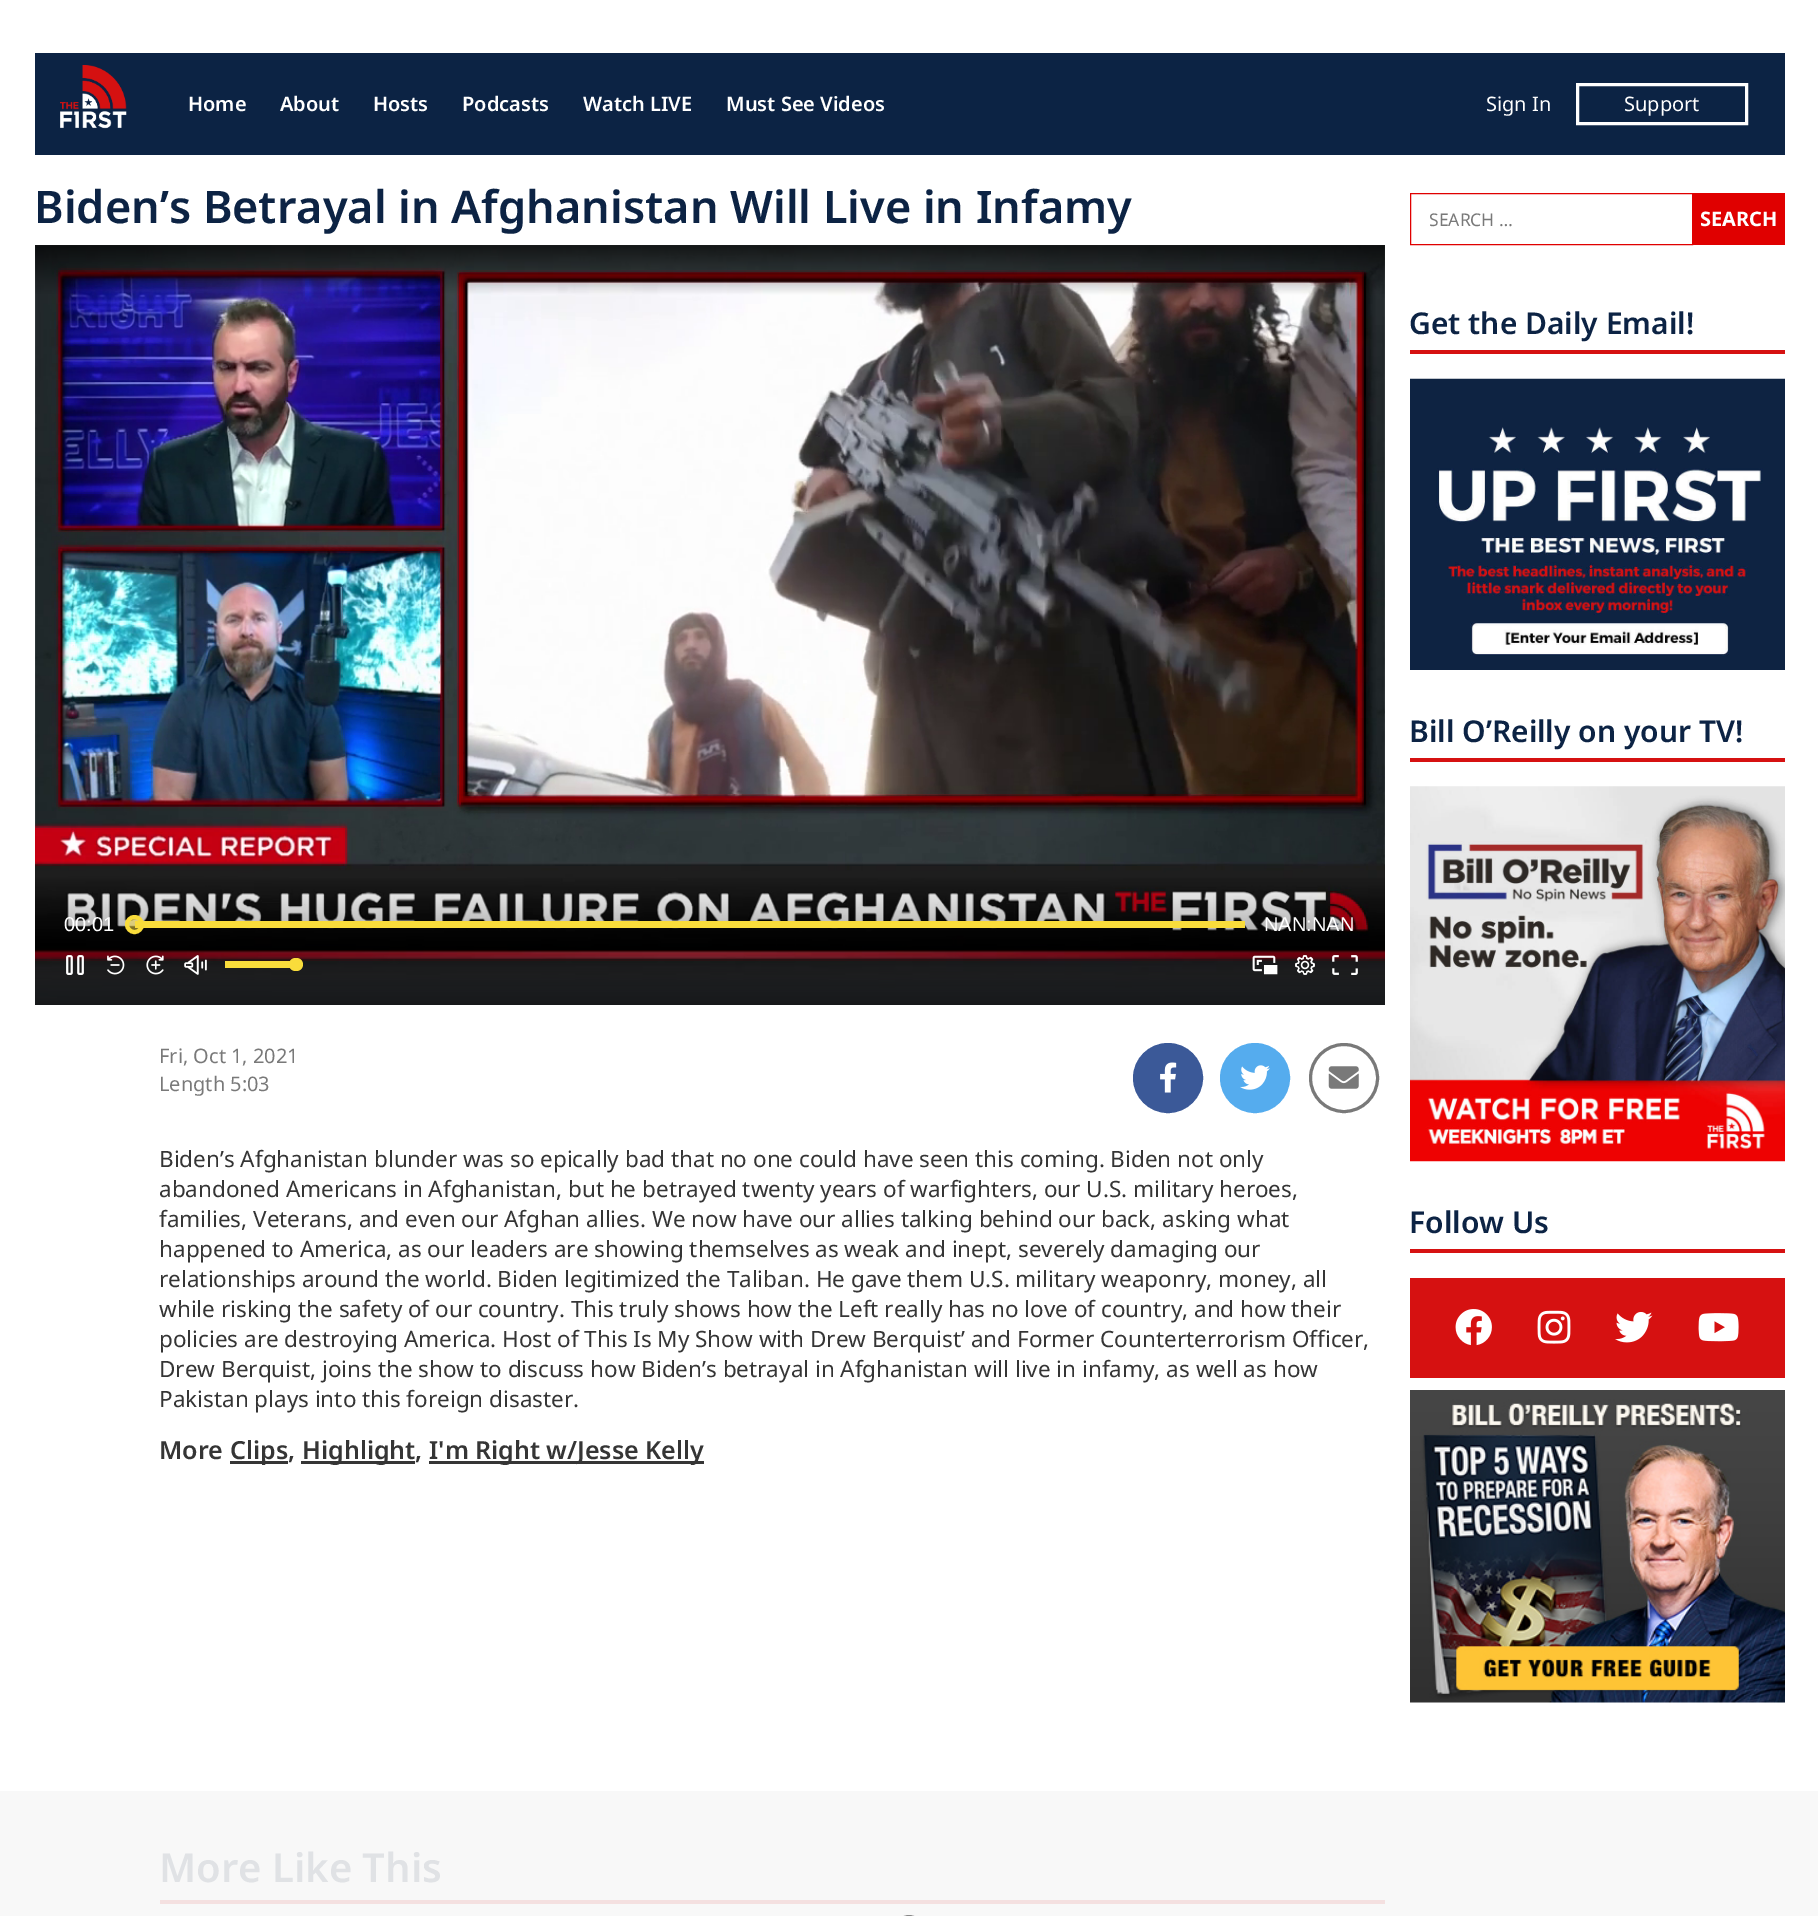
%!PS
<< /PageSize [1818 1916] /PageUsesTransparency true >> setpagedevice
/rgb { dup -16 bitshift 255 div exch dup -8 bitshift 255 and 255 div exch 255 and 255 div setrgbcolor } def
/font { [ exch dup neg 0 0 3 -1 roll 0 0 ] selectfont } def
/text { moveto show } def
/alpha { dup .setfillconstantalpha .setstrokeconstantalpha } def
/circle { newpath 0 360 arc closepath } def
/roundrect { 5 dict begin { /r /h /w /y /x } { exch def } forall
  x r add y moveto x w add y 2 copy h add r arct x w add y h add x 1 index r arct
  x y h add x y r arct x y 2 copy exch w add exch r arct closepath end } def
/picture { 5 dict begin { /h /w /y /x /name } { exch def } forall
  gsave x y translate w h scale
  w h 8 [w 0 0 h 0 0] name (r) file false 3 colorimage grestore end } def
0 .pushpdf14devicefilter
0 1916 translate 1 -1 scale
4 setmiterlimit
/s1 { /NotoSans-SemiBold 20 font 16#FFFFFF rgb } def
/s2 { /NotoSans-Regular 20 font 16#FFFFFF rgb } def
/s3 { /NotoSans-SemiBold 45 font 16#0C2344 rgb } def
/s4 { /LiberationSans-Regular 20 font 16#FFFFFF rgb } def
/s5 { /NotoSans-Regular 20 font 16#797979 rgb } def
/s6 { /NotoSans-Regular 22.5 font 16#353535 rgb } def
/s7 { /NotoSans-SemiBold 25 font 16#353535 rgb } def
/s8 { /NotoSans-SemiBold 40 font 16#E0E2E5 rgb } def
/s9 { /NotoSans-Regular 17.5 font 16#797979 rgb } def
/s10 { /NotoSans-Bold 20 font 16#FFFFFF rgb } def
/s11 { /NotoSans-SemiBold 30 font 16#0C2344 rgb } def
16#FFFFFF rgb
0 0 1818 1916 rectfill
16#F8F8F8 rgb
0 1791 1818 125 rectfill
16#0C2344 rgb
35 53 1750 102 rectfill
(pic1.raw) 60 65 67 64 picture
s1
(Home) 188 111 text
(About) 280 111 text
(Hosts) 373 111 text
(Podcasts) 462 111 text
(Watch LIVE) 583 111 text
(Must See Videos) 726 111 text
s2
(Sign In) 1486 111 text
3 setlinewidth
1577.5 84.5 169 39 rectstroke
(Support) 1624 111 text
s3
(Biden’s Betrayal in Afghanistan Will Live in Infamy) 34 223 text
(pic2.raw) 35 245 1350 760 picture
s4
(00:01) 64 931 text
16#F9DC3B rgb
135 921 1110 7 rectfill
0.5 alpha
134.5 924.5 7.5 circle fill
1 alpha
4 setlinewidth
134.5 924.5 7.5 circle stroke
s4
(NAN:NAN) 1264 931 text
(pic3.raw) 66 955 18 20 picture
(pic4.raw) 107 955 18 20 picture
(pic5.raw) 146 955 18 20 picture
(pic6.raw) 184 955 23 20 picture
16#F9DC3B rgb
225 961 71 7 rectfill
289 958 14 13 6.5 roundrect fill
(pic7.raw) 1252 955 26 20 picture
(pic8.raw) 1295 955 20 20 picture
(pic9.raw) 1332 955 26 20 picture
s5
(Fri, Oct 1, 2021) 159 1063 text
16#3B5998 rgb
1168 1078 33.5 circle gsave fill grestore
3 setlinewidth
stroke
(pic10.raw) 1160 1062 17 31 picture
16#55ACEE rgb
1255 1078 33.5 circle gsave fill grestore
stroke
(pic11.raw) 1240 1065 30 25 picture
16#797979 rgb
1344 1078 33.5 circle stroke
(pic12.raw) 1328 1066 31 23 picture
(Length 5:03) 159 1091 text
s6
(Biden’s Afghanistan blunder was so epically bad that no one could have seen this coming. Biden not only) 159 1167 text
(abandoned Americans in Afghanistan, but he betrayed twenty years of warfighters, our U.S. military heroes,) 159 1197 text
(families, Veterans, and even our Afghan allies. We now have our allies talking behind our back, asking what) 159 1227 text
(happened to America, as our leaders are showing themselves as weak and inept, severely damaging our) 159 1257 text
(relationships around the world. Biden legitimized the Taliban. He gave them U.S. military weaponry, money, all) 159 1287 text
(while risking the safety of our country. This truly shows how the Left really has no love of country, and how their) 159 1317 text
(policies are destroying America. Host of This Is My Show with Drew Berquist’ and Former Counterterrorism Officer,) 159 1347 text
(Drew Berquist, joins the show to discuss how Biden’s betrayal in Afghanistan will live in infamy, as well as how) 159 1377 text
(Pakistan plays into this foreign disaster.) 159 1407 text
s7
(More) 159 1459 text
230 1461 58 3 rectfill
(Clips,) 230 1459 text
301 1461 114 3 rectfill
(Highlight,) 302 1459 text
429 1461 275 3 rectfill
(I'm Right w/Jesse Kelly) 429 1459 text
16#F4E0E0 rgb
160 1900 1225 4 rectfill
s8
(More Like This) 159 1882 text
16#E00000 rgb
1 setlinewidth
1410.5 193.5 282 51 rectstroke
s9
(SEARCH …) 1429 226 text
16#E00000 rgb
1693 193 92 52 rectfill
s10
(SEARCH) 1700 226 text
16#D61111 rgb
1410 350 375 4 rectfill
s11
(Get the Daily Email!) 1409 334 text
(pic13.raw) 1410 378 375 292 picture
16#D61111 rgb
1410 758 375 4 rectfill
s11
(Bill O’Reilly on your TV!) 1409 742 text
(pic14.raw) 1410 786 375 376 picture
16#D61111 rgb
1410 1249 375 4 rectfill
s11
(Follow Us) 1409 1233 text
16#D61111 rgb
1410 1278 375 100 rectfill
(pic15.raw) 1455 1309 37 37 picture
(pic16.raw) 1537 1310 34 34 picture
(pic17.raw) 1615 1312 38 31 picture
(pic18.raw) 1698 1313 41 29 picture
(pic19.raw) 1410 1390 375 313 picture
16#888888 rgb
895.5 1915.5 27 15 13.5 roundrect stroke
.poppdf14devicefilter showpage
